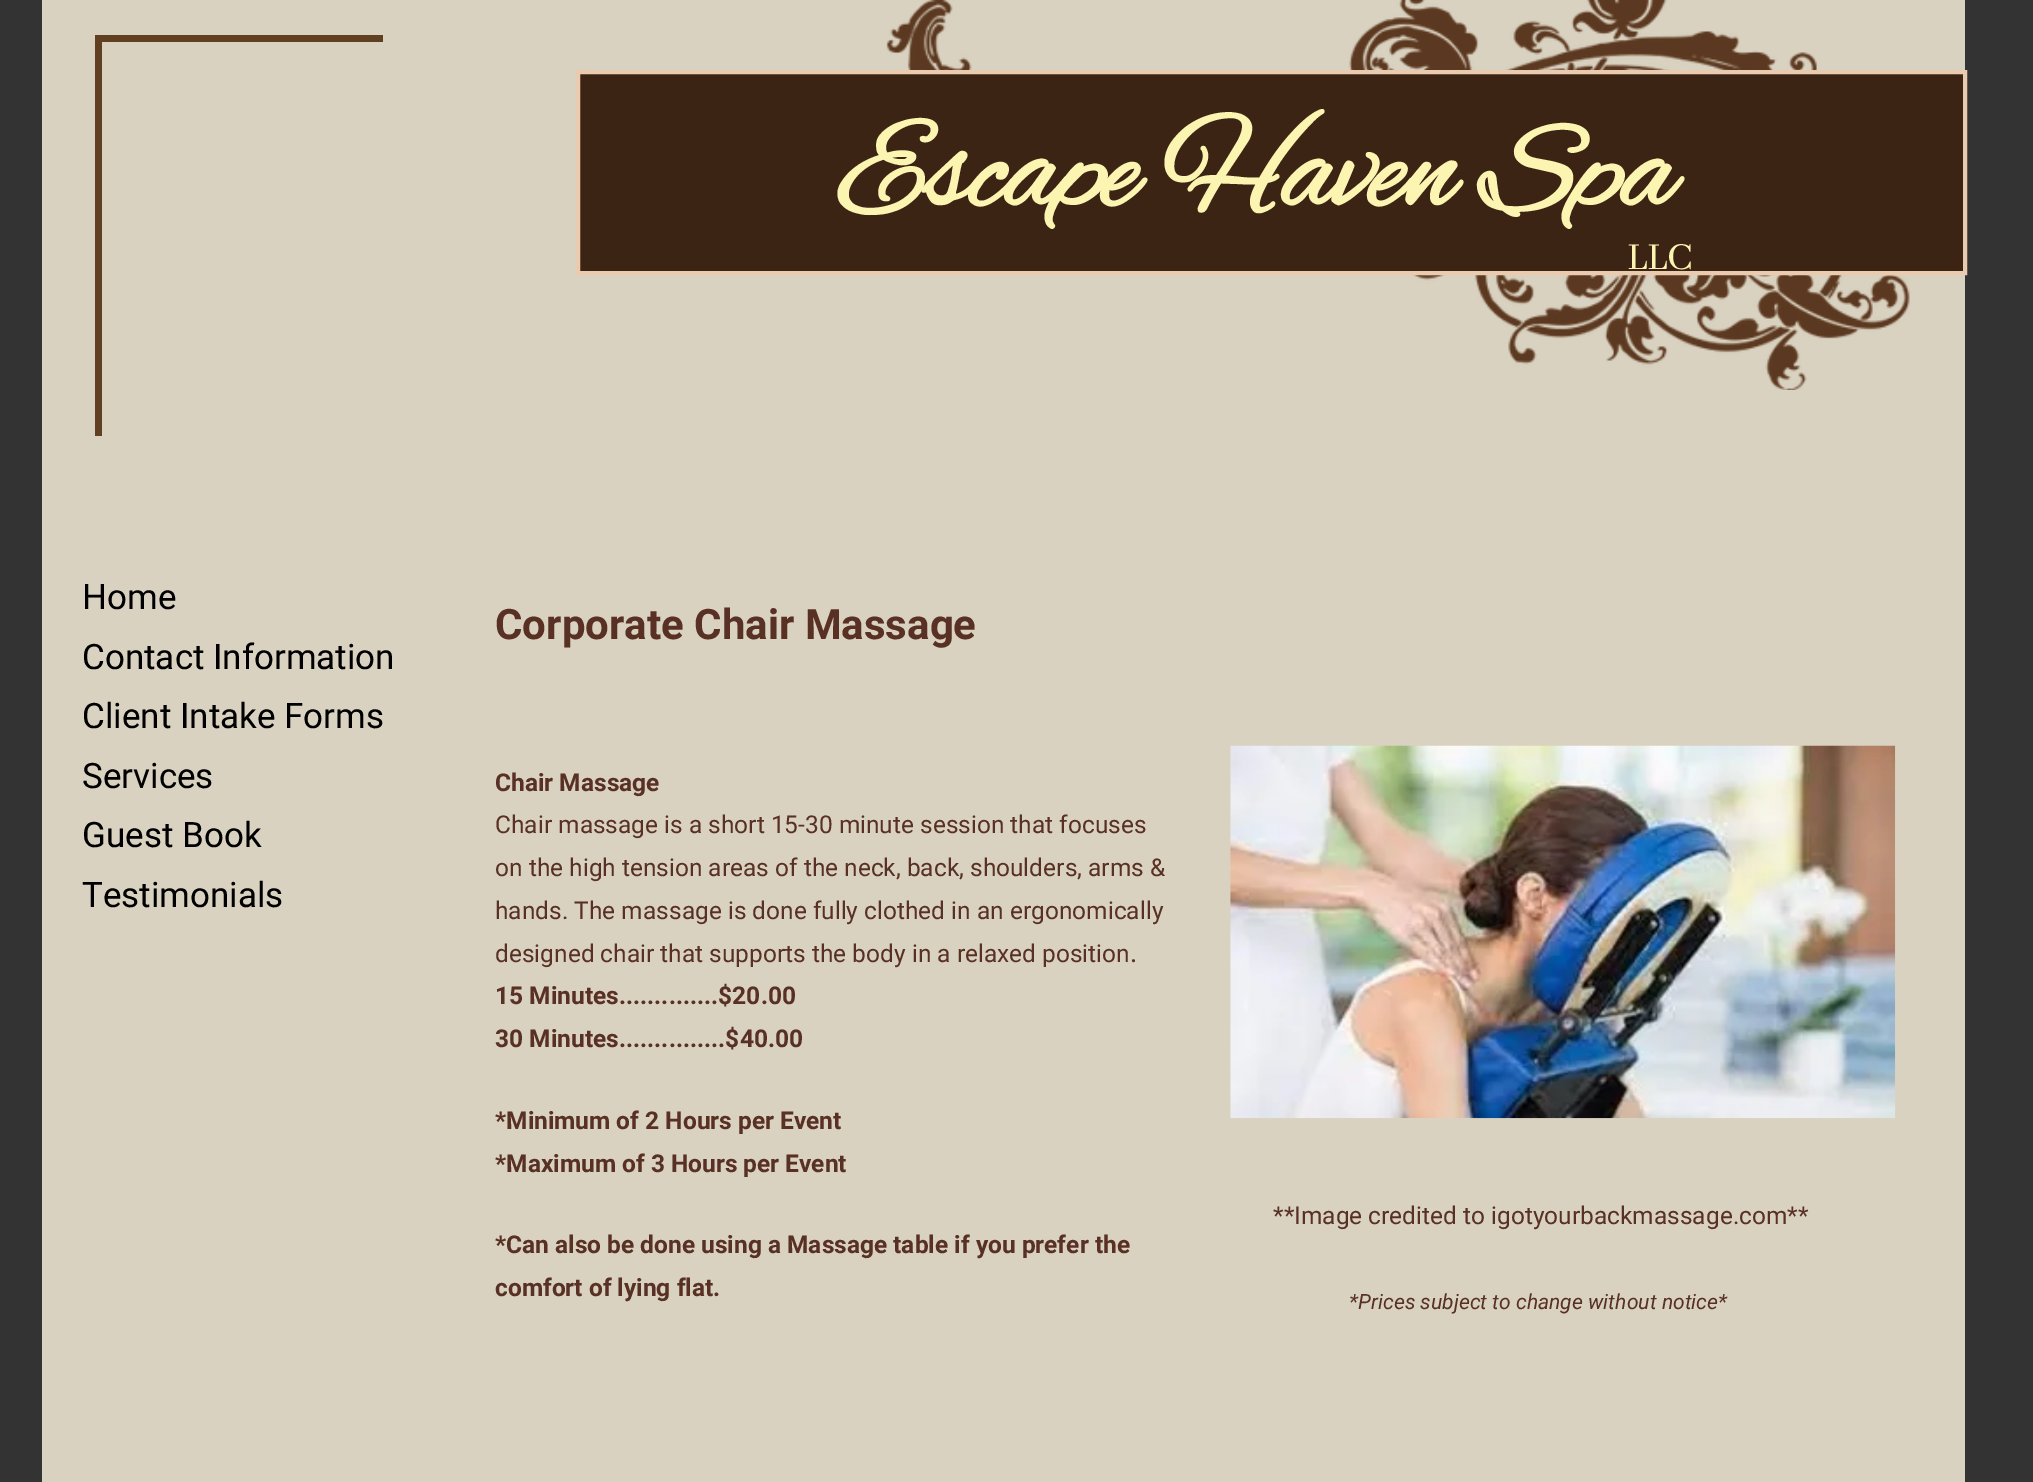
%!PS
<< /PageSize [2033 1482] >> setpagedevice
/rgb { dup -16 bitshift 255 div exch dup -8 bitshift 255 and 255 div exch 255 and 255 div setrgbcolor } def
/font { [ exch dup neg 0 0 3 -1 roll 0 0 ] selectfont } def
/text { moveto show } def
/picture { 5 dict begin { /h /w /y /x /name } { exch def } forall
  gsave x y translate w h scale
  w h 8 [w 0 0 h 0 0] name (r) file false 3 colorimage grestore end } def
0 1482 translate 1 -1 scale
4 setmiterlimit
/s1 { /AlexBrush-Bold 126 font 16#FCF4B1 rgb } def
/s2 { /AbhayaLibre-Regular 42 font 16#FCF4B1 rgb } def
/s3 { /Roboto-Regular 35 font 16#000000 rgb } def
/s4 { /Roboto-Bold 42 font 16#583124 rgb } def
/s5 { /Roboto-Bold 24.5 font 16#583124 rgb } def
/s6 { /Roboto-Regular 24.5 font 16#583124 rgb } def
/s7 { /Roboto-Regular 28 font 16#583124 rgb } def
/s8 { /Roboto-Italic 21 font 16#583124 rgb } def
16#333333 rgb
0 0 2033 1482 rectfill
16#DAD2C0 rgb
42 0 1923 1482 rectfill
(pic1.raw) 886 0 1024 390 picture
16#614021 rgb
95 35 288 7 rectfill
95 35 7 401 rectfill
16#3C2415 rgb
578 72 moveto 1965 72 lineto 1965 273 lineto 578 273 lineto closepath gsave fill grestore
16#EACBAF rgb
4 setlinewidth
stroke
s1
(Escape Haven Spa) 837 205 text
s2
(LLC) 1627 269 text
s3
(Home) 82 609 text
(Contact Information) 82 669 text
(Client Intake Forms) 82 728 text
(Services) 82 788 text
(Guest Book) 82 847 text
(Testimonials) 82 907 text
s4
(Corporate Chair Massage) 495 639 text
s5
(Chair Massage) 495 791 text
s6
(Chair massage is a short 15-30 minute session that focuses) 495 833 text
(on the high tension areas of the neck, back, shoulders, arms &) 495 876 text
(hands. The massage is done fully clothed in an ergonomically) 495 919 text
(designed chair that supports the body in a relaxed position) 495 962 text
s7
(.) 1130 962 text
s5
(15 Minutes..............$20.00) 495 1004 text
(30 Minutes...............$40.00) 495 1047 text
(*Minimum of 2 Hours per Event) 495 1129 text
(*Maximum of 3 Hours per Event) 495 1172 text
(*Can also be done using a Massage table if you prefer the) 495 1253 text
(comfort of lying flat.) 495 1296 text
(pic2.raw) 1230 745 666 374 picture
s6
(**Image credited to igotyourbackmassage.com**) 1273 1224 text
s8
(*Prices subject to change without notice*) 1349 1309 text
showpage
